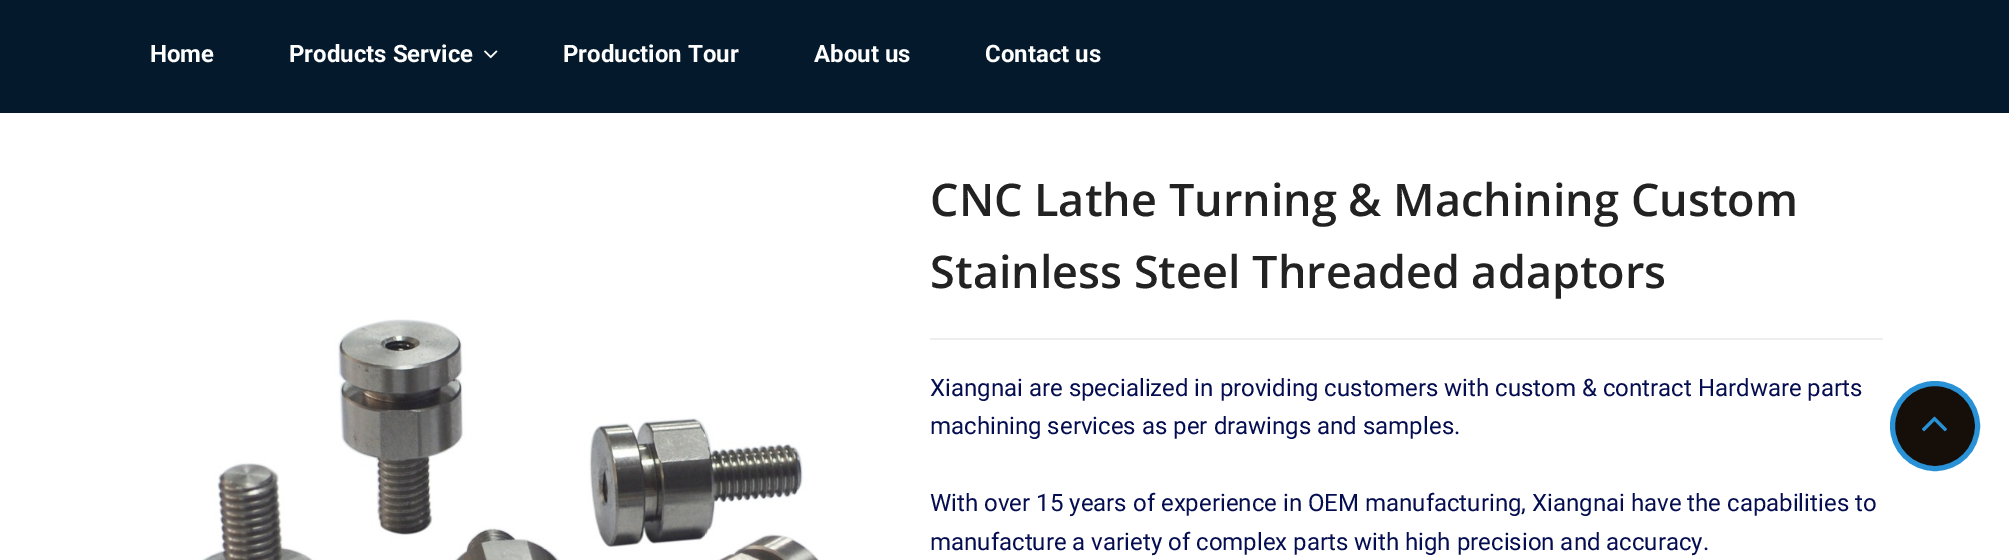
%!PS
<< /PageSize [2009 560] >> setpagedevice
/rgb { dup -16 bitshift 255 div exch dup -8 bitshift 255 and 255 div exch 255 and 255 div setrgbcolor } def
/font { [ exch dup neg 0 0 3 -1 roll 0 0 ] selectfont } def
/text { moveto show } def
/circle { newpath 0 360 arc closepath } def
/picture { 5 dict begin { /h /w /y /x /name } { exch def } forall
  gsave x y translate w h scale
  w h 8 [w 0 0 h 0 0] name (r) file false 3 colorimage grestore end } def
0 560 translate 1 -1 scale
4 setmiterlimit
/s1 { /Roboto-Bold 24 font 16#FFFFFF rgb } def
/s2 { /OpenSans-SemiBold 45 font 16#222222 rgb } def
/s3 { /Roboto-Regular 24 font 16#050D51 rgb } def
16#FFFFFF rgb
0 0 2009 560 rectfill
16#04192B rgb
0 0 2009 113 rectfill
s1
(Home) 150 62 text
(Products Service) 289 62 text
(pic1.raw) 484 50 14 9 picture
(Production Tour) 563 62 text
(About us) 814 62 text
(Contact us) 985 62 text
(pic2.raw) 201 319 618 241 picture
s2
(CNC Lathe Turning & Machining Custom) 930 216 text
(Stainless Steel Threaded adaptors) 930 288 text
16#EEEEEE rgb
930 338 953 2 rectfill
s3
(Xiangnai are specialized in providing customers with custom & contract Hardware parts) 930 396 text
(machining services as per drawings and samples.) 930 434 text
(With over 15 years of experience in OEM manufacturing, Xiangnai have the capabilities to) 930 511 text
(manufacture a variety of complex parts with high precision and accuracy.) 930 550 text
16#160F09 rgb
1935 426 42.5 circle gsave fill grestore
16#2991D6 rgb
5 setlinewidth
stroke
(pic3.raw) 1922 416 25 16 picture
showpage
